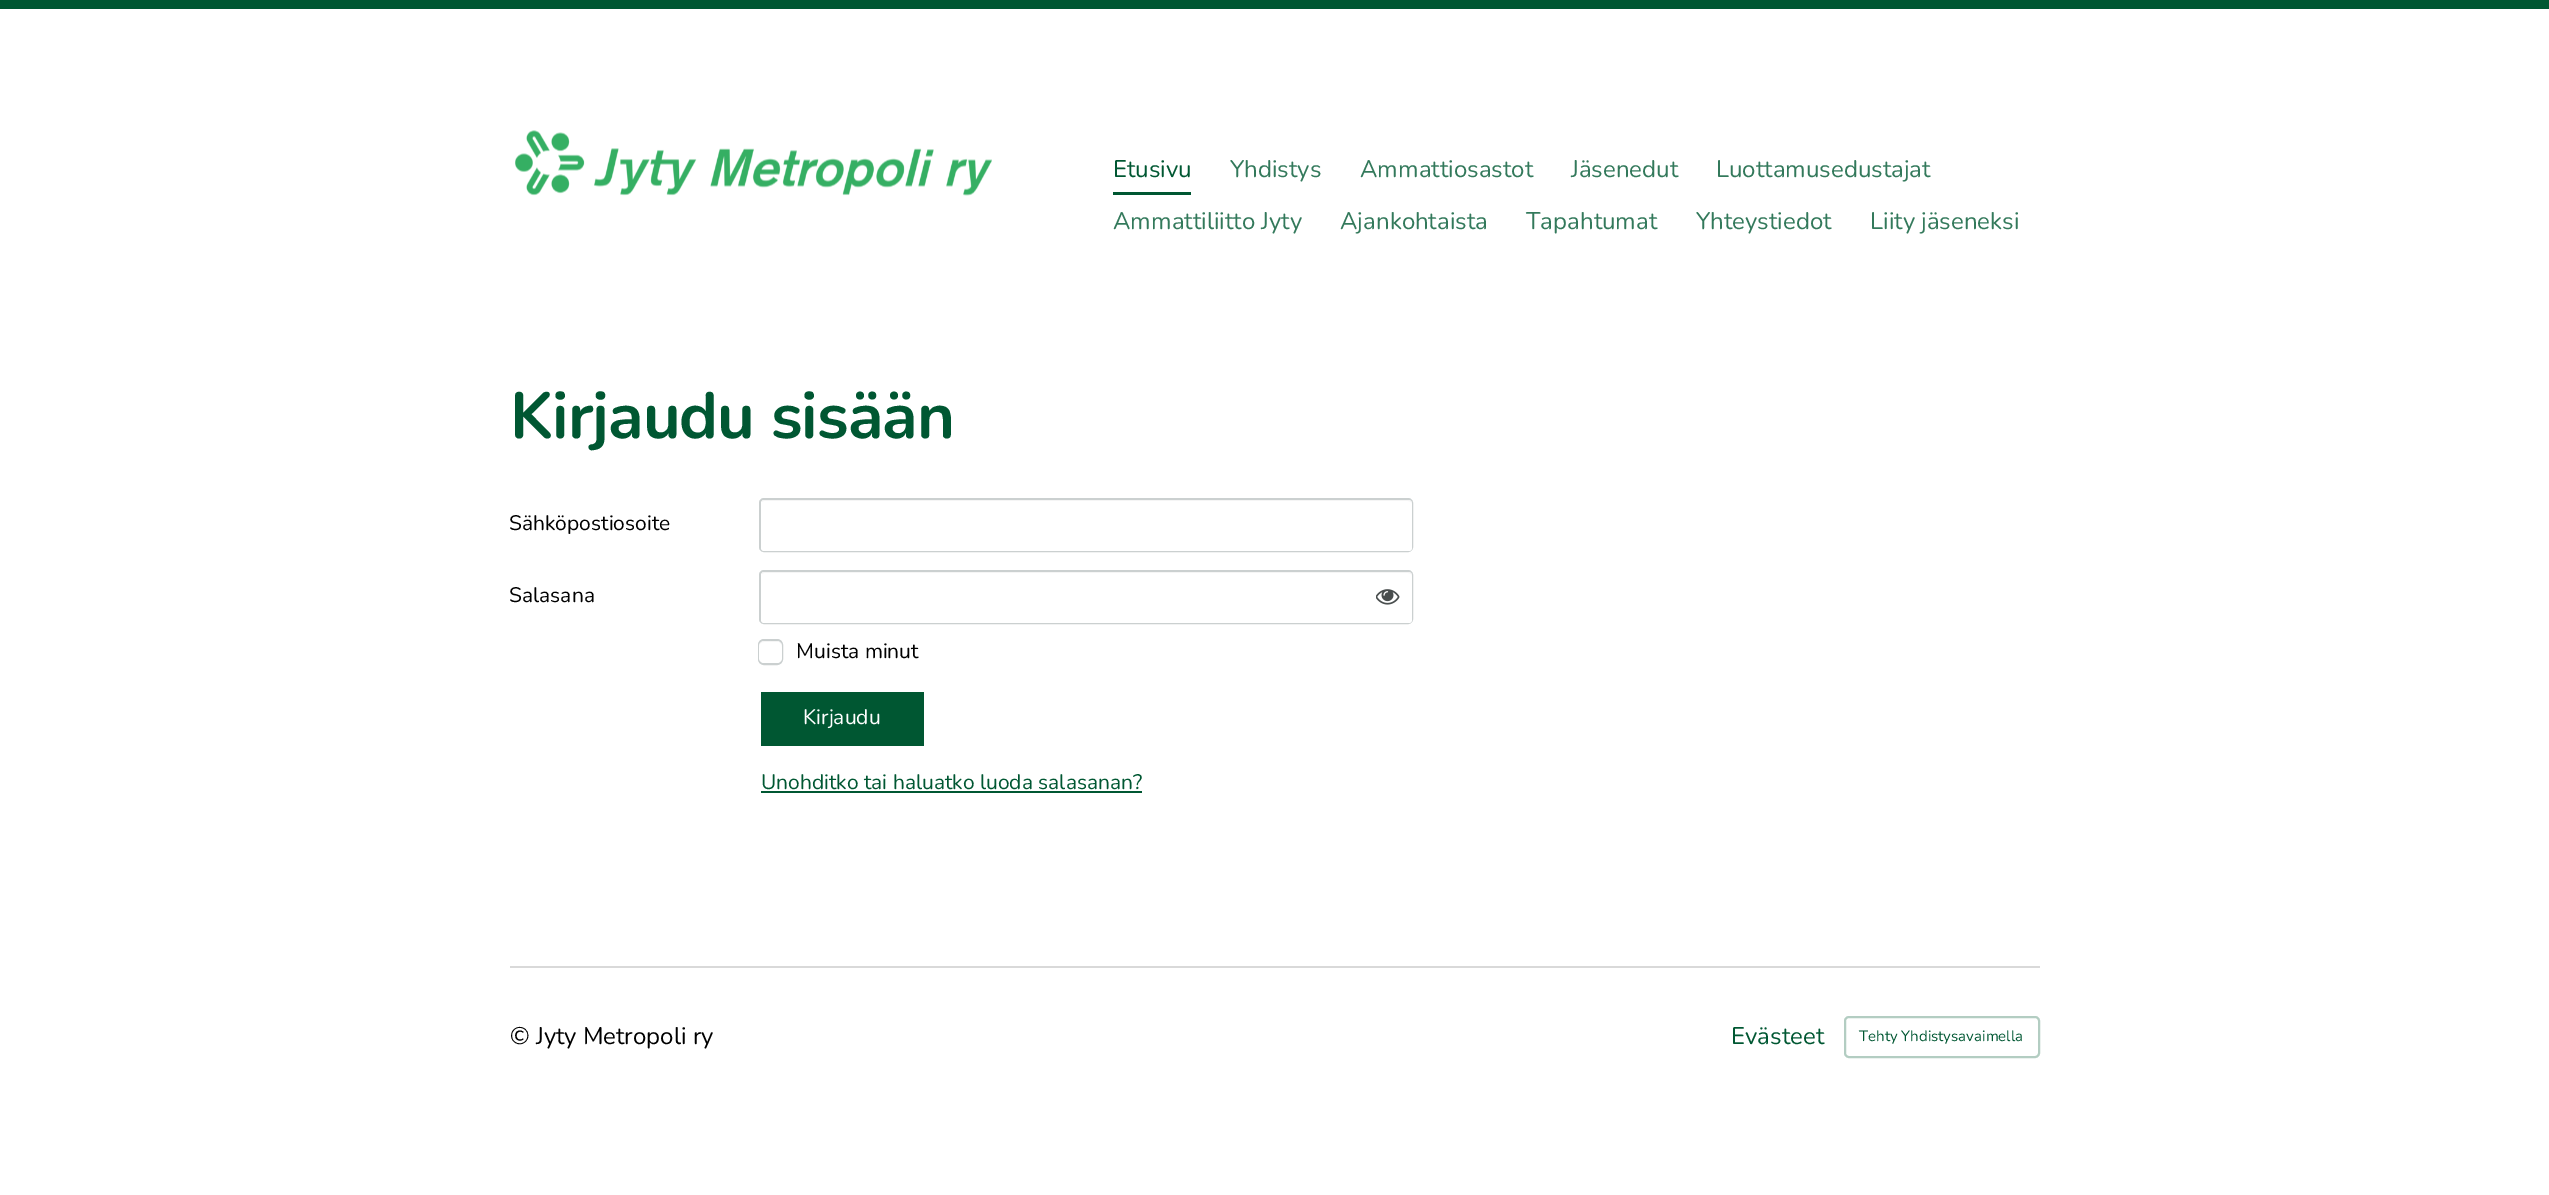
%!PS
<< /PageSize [2549 1195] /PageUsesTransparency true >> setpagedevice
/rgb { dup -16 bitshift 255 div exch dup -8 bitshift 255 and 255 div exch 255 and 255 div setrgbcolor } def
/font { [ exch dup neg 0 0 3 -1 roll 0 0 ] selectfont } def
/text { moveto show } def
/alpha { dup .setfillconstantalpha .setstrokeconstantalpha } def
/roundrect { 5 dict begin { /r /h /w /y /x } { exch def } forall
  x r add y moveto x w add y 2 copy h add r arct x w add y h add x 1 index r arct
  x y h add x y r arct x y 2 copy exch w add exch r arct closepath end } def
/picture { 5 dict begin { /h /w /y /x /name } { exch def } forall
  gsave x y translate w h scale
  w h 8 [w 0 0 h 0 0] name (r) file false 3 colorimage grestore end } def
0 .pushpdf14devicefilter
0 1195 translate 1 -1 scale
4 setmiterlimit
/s1 { /Nunito-ExtraLight 24 font 16#005732 rgb } def
/s2 { /Nunito-ExtraLight 24 font 16#33795B rgb } def
/s3 { /Nunito-ExtraLight 21 font 16#000000 rgb } def
/s4 { /Nunito-ExtraLight 21 font 16#FFFFFF rgb } def
/s5 { /Nunito-ExtraLight 21 font 16#005732 rgb } def
/s6 { /Nunito-ExtraLight 24 font 16#000000 rgb } def
/s7 { /Nunito-ExtraLight 15 font 16#005732 rgb } def
16#FFFFFF rgb
0 0 2549 1195 rectfill
16#005732 rgb
0 0 2549 9 rectfill
(pic1.raw) 515 130 477 66 picture
s1
(Etusivu) 1113 177 text
1113 192 78 3 rectfill
s2
(Yhdistys) 1230 177 text
(Ammattiosastot) 1360 177 text
(Jäsenedut) 1571 177 text
(Luottamusedustajat) 1716 177 text
(Ammattiliitto Jyty) 1113 229 text
(Ajankohtaista) 1340 229 text
(Tapahtumat) 1526 229 text
(Yhteystiedot) 1696 229 text
(Liity jäseneksi) 1870 229 text
/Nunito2-ExtraLight 65 font
16#005732 rgb
510 438 moveto -1 0 (Kirjaudu sisään) ashow
s3
(Sähköpostiosoite) 509 530 text
16#CBD0D0 rgb
2 setlinewidth
760 499 652 52 4 roundrect stroke
16#FFFFFF rgb
761 500 651 51 3 roundrect fill
0.05 alpha
16#3F3F44 rgb
764 501 moveto 1408 501 lineto 1410 501 1412 502 1412 504 curveto 1412 503 lineto 1412 501 1411 500 1409 500 curveto 764 500 lineto 763 500 762 501 761 502 curveto closepath fill
1 alpha
s3
(Salasana) 509 602 text
16#CBD0D0 rgb
760 571 652 52 4 roundrect stroke
16#FFFFFF rgb
761 572 651 51 3 roundrect fill
0.05 alpha
16#3F3F44 rgb
764 573 moveto 1408 573 lineto 1410 573 1412 574 1412 576 curveto 1412 575 lineto 1412 573 1411 572 1409 572 curveto 764 572 lineto 763 572 762 573 761 574 curveto closepath fill
1 alpha
(pic2.raw) 1376 589 24 16 picture
16#CBD0D0 rgb
759 640 23 24 5 roundrect stroke
16#FFFFFF rgb
759 641 23 22 5 roundrect fill
0.05 alpha
16#3F3F44 rgb
764 642 moveto 779 642 lineto 781 643 782 645 782 647 curveto 782 639.5 776 641 770.5 641 curveto 764 641 759 639.5 759 648 curveto 759 644.5 760 642 764 642 curveto closepath fill
1 alpha
s3
(Muista minut) 796 658 text
16#005732 rgb
761 692 163 54 rectfill
s4
(Kirjaudu) 803 724 text
s5
(Unohditko tai haluatko luoda salasanan?) 761 789 text
761 791 381 2 rectfill
16#D9D9D9 rgb
510 966 1530 2 rectfill
s6
(© Jyty Metropoli ry) 510 1044 text
s1
(Evästeet) 1731 1044 text
16#B3CDC2 rgb
1845 1017 194 40 4 roundrect stroke
s7
(Tehty Yhdistysavaimella) 1859 1041 text
.poppdf14devicefilter showpage
